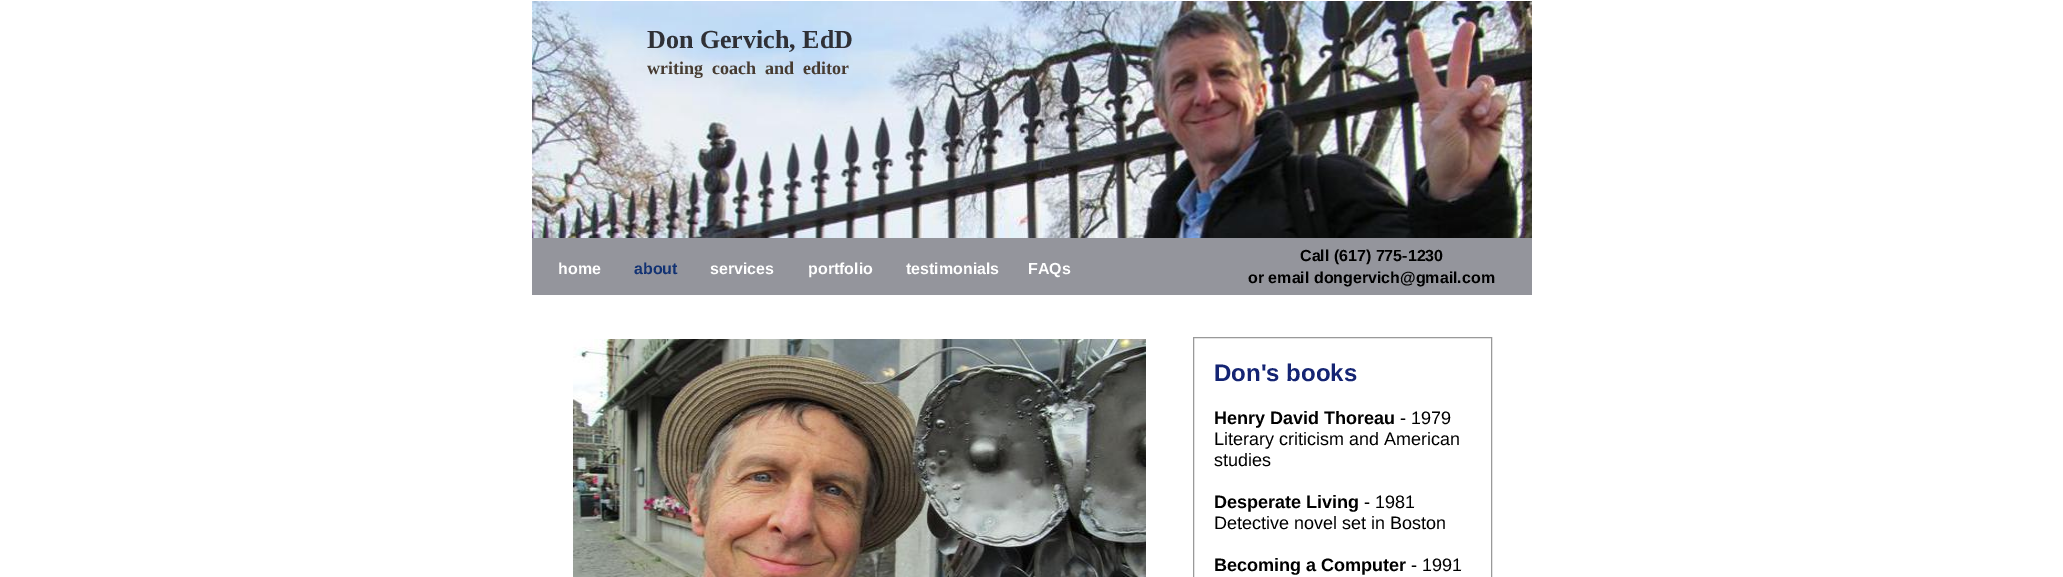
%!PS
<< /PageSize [2063 577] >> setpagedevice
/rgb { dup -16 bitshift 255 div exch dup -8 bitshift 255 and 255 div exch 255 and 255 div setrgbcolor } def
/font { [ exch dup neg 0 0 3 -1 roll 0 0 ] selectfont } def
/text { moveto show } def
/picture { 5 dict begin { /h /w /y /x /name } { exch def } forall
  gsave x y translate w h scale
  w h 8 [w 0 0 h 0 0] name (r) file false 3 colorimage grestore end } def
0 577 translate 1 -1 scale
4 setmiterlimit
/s1 { /LiberationSerif-Bold 26 font 16#2F3036 rgb } def
/s2 { /LiberationSerif-Bold 18 font 16#473C32 rgb } def
/s3 { /LiberationSans-Bold 16 font 16#000000 rgb } def
/s4 { /LiberationSans-Bold 16 font 16#FFFFFF rgb } def
/s5 { /LiberationSans-Bold 16 font 16#123273 rgb } def
/s6 { /LiberationSans-Bold 24 font 16#142473 rgb } def
/s7 { /LiberationSans-Bold 18 font 16#000000 rgb } def
/s8 { /LiberationSans-Regular 18 font 16#000000 rgb } def
16#FFFFFF rgb
0 0 2063 577 rectfill
(pic1.raw) 532 1 1000 237 picture
s1
(Don Gervich, EdD) 647 48 text
s2
(writing  coach  and  editor) 647 74 text
16#94959C rgb
532 238 1000 57 rectfill
s3
(Call \(617\) 775-1230) 1300 261 text
s4
(home) 558 274 text
s5
(about) 634 274 text
s4
(services) 710 274 text
(portfolio) 808 274 text
(testimonials) 906 274 text
(FAQs) 1028 274 text
s3
(or email dongervich@gmail.com) 1248 283 text
(pic2.raw) 573 339 573 238 picture
16#999999 rgb
1193.5 337.5 298 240 rectstroke
s6
(Don's books) 1214 381 text
s7
(Henry David Thoreau) 1214 424 text
s8
(- 1979) 1400 424 text
(Literary criticism and American) 1214 445 text
(studies) 1214 466 text
s7
(Desperate Living) 1214 508 text
s8
(- 1981) 1364 508 text
(Detective novel set in Boston) 1214 529 text
s7
(Becoming a Computer) 1214 571 text
s8
(- 1991) 1411 571 text
showpage
